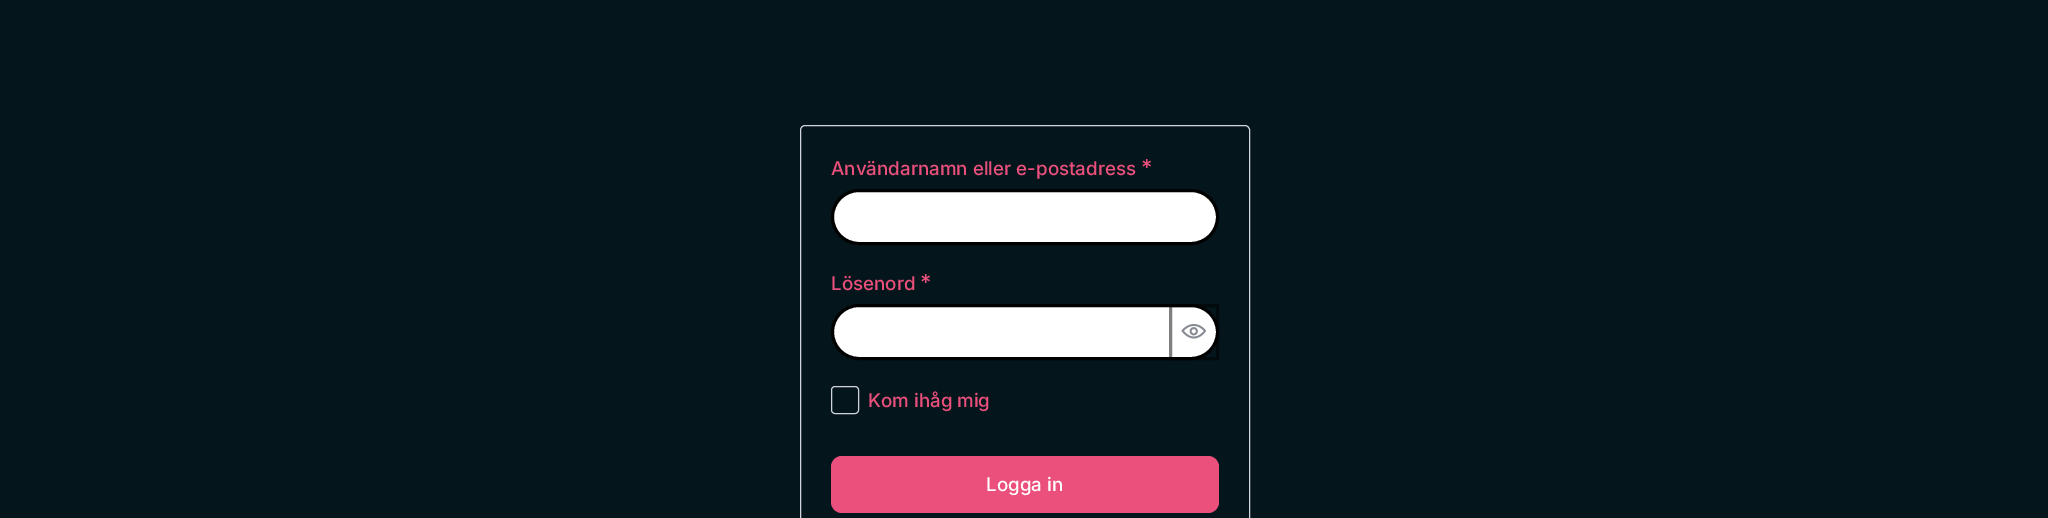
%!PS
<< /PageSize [2048 518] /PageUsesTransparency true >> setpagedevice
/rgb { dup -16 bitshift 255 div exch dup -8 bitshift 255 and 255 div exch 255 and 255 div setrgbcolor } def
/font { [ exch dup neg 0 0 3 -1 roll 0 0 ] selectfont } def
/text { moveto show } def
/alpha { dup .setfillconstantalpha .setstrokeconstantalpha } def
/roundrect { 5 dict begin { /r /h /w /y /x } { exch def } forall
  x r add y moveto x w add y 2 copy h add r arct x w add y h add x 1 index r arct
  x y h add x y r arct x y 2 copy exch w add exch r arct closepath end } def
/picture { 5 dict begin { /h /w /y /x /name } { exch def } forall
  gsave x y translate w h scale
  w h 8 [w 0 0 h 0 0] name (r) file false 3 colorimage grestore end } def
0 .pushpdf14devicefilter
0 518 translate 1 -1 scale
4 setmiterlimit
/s1 { /Inter-Medium 18.75 font 16#EB507C rgb } def
/s2 { /Inter-Medium 22 font 16#EB507C rgb } def
/s3 { /Inter-Medium 18.75 font 16#FFFFFF rgb } def
16#04151B rgb
0 0 2048 518 rectfill
16#D1D5DB rgb
800.5 125.5 449 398 4.5 roundrect stroke
s1
(Användarnamn eller e-postadress) 831 175 text
s2
(*) 1141 175 text
16#FFFFFF rgb
832.5 190.5 385 53 26.5 roundrect gsave fill grestore
16#000000 rgb
3 setlinewidth
stroke
s1
(Lösenord) 831 290 text
s2
(*) 920 290 text
16#FFFFFF rgb
832.5 305.5 385 53 26.5 roundrect gsave fill grestore
16#000000 rgb
stroke
(pic1.raw) 1181 324 25 15 picture
0.5 alpha
1170.5 305.5 47 53 rectstroke
1 alpha
16#D1D5DB rgb
1 setlinewidth
831.5 386.5 27 27 3.5 roundrect stroke
s1
(Kom ihåg mig) 868 407 text
831 456 388 57 11 roundrect fill
s3
(Logga in) 986 491 text
.poppdf14devicefilter showpage
